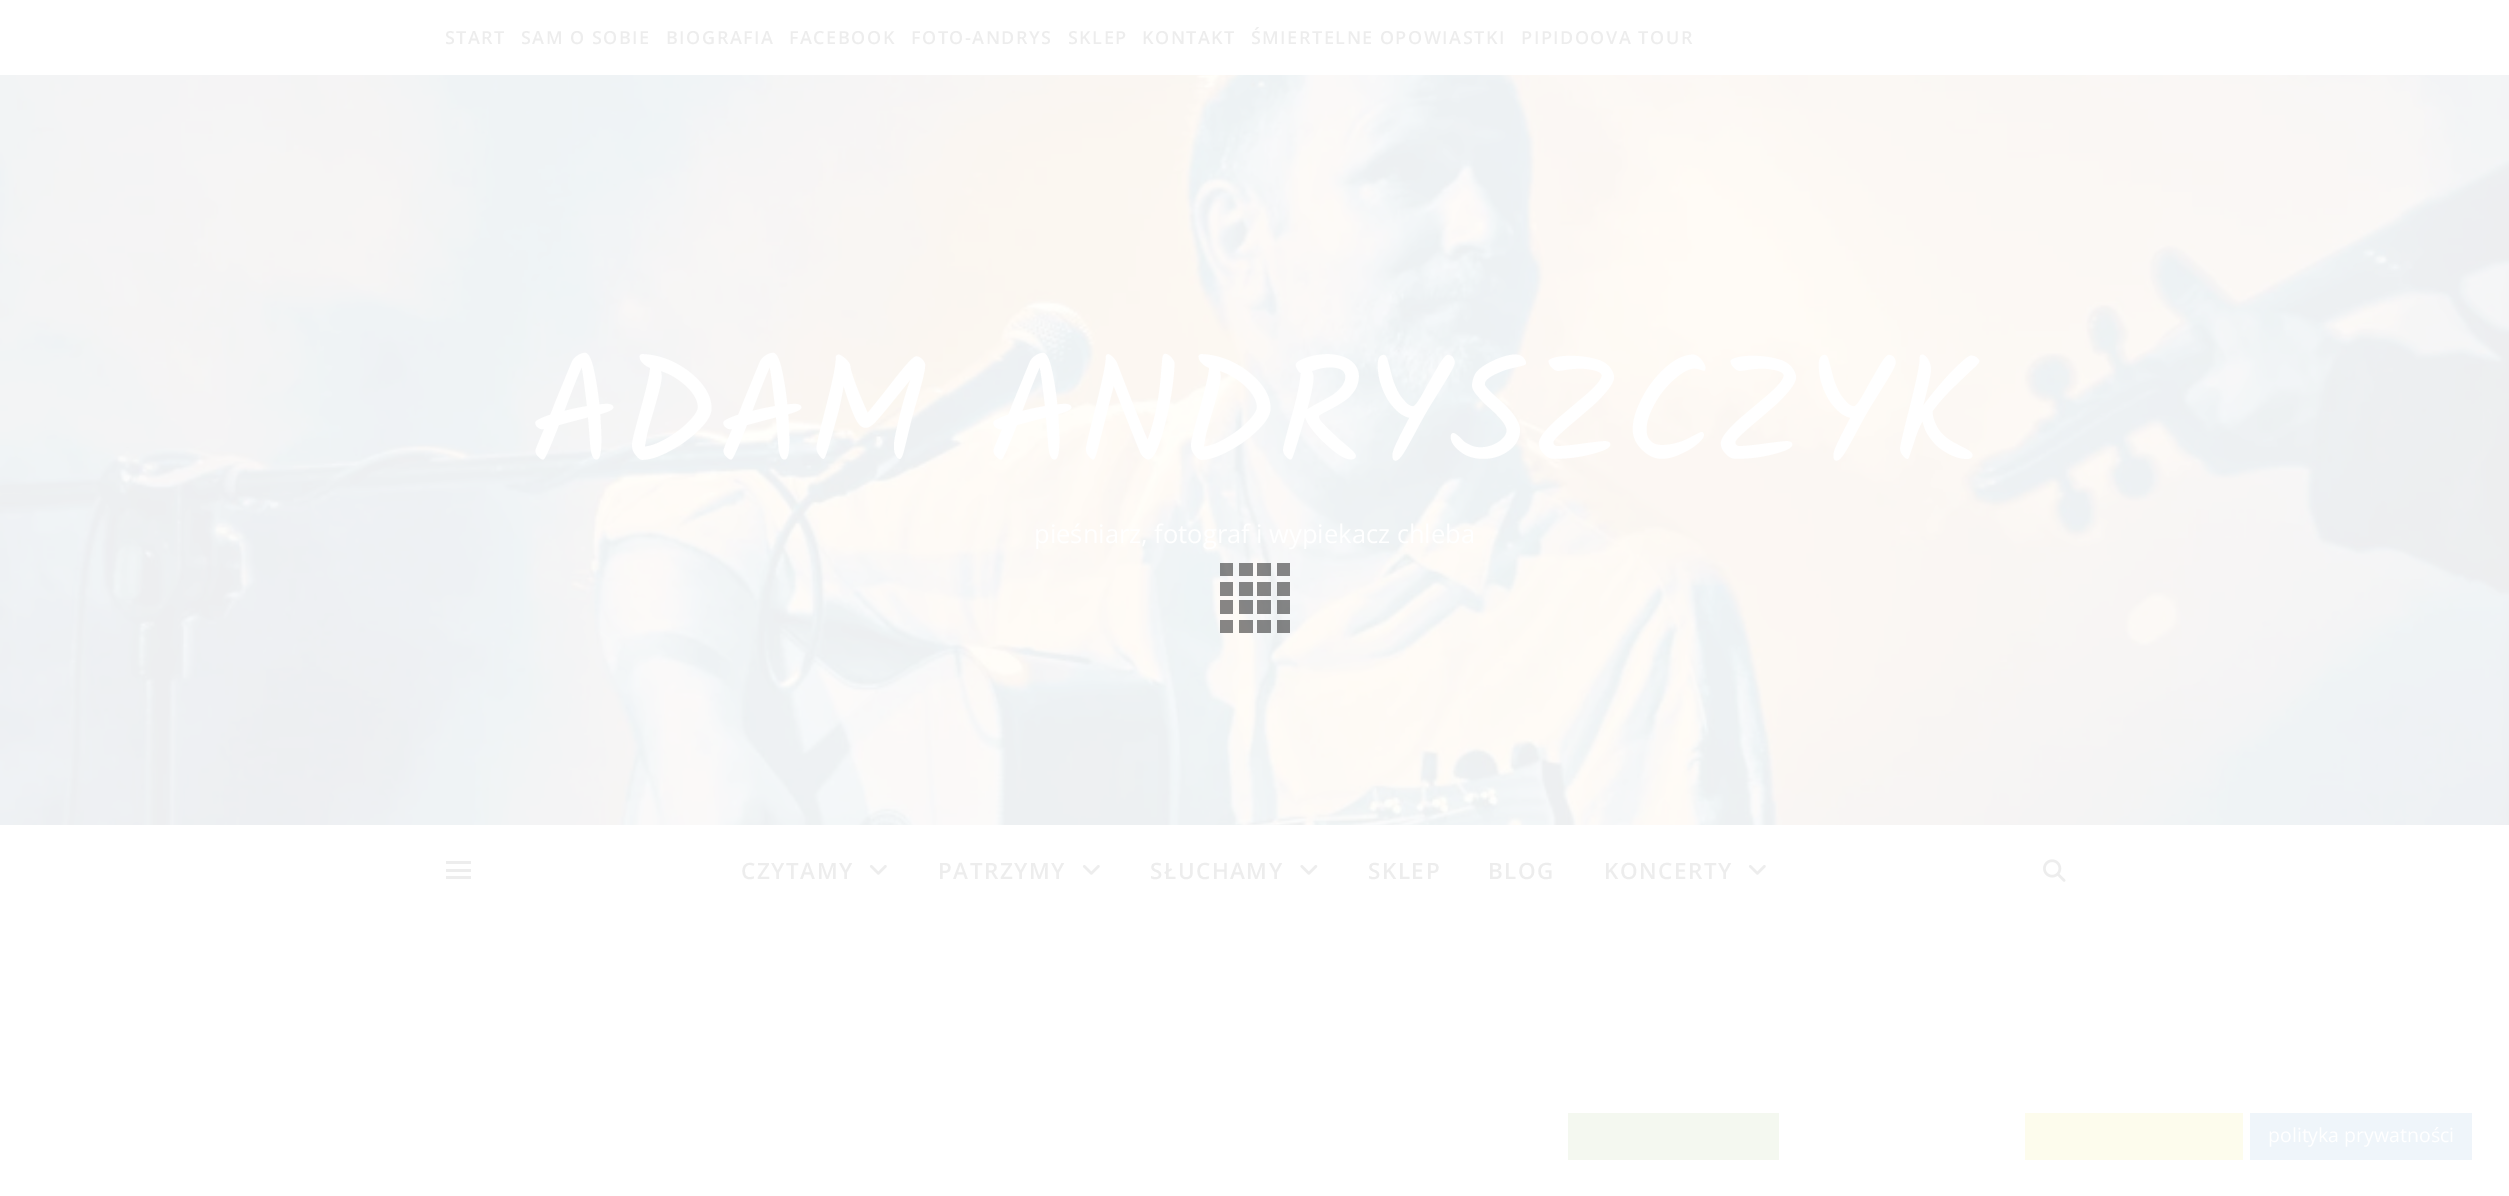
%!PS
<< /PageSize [2509 1196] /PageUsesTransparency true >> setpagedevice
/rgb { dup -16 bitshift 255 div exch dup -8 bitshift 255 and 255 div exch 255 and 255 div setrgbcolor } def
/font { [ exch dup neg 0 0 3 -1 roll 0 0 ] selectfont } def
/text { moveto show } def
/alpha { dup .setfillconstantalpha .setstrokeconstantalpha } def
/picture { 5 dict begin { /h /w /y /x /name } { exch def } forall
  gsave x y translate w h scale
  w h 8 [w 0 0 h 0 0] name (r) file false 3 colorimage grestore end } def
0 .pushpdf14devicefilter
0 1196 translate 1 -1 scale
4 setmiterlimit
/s1 { /Kalam-Regular 150 font 16#FFFFFF rgb } def
/s2 { /OpenSans-Regular 25.5 font 16#FFFFFF rgb } def
/s3 { /OpenSans-Regular 19.5 font 16#FFFFFF rgb } def
16#FFFFFF rgb
0 0 2509 1196 rectfill
/OpenSans-SemiBold 18 font
16#EDEDED rgb
445 44 moveto 1.5 0 (START) ashow
521 44 moveto 1.5 0 (SAM O SOBIE) ashow
666 44 moveto 1.5 0 (BIOGRAFIA) ashow
789 44 moveto 1.5 0 (FACEBOOK) ashow
911 44 moveto 1.5 0 (FOTO-ANDRYS) ashow
1068 44 moveto 1.5 0 (SKLEP) ashow
1142 44 moveto 1.5 0 (KONTAKT) ashow
1251 44 moveto 1.5 0 (ŚMIERTELNE OPOWIASTKI) ashow
1521 44 moveto 1.5 0 (PIPIDOOVA TOUR) ashow
(pic1.raw) 0 75 2509 750 picture
s1
(ADAM ANDRYSZCZYK) 529 462 text
s2
(pieśniarz, fotograf i wypiekacz chleba) 1034 543 text
16#EDEDED rgb
446 861 25 3 rectfill
446 869 25 3 rectfill
446 876 25 3 rectfill
/OpenSans-SemiBold 22.5 font
741 879 moveto 1.5 0 (CZYTAMY) ashow
(pic2.raw) 869 864 18 11 picture
938 879 moveto 1.5 0 (PATRZYMY) ashow
(pic2.raw) 1082 864 18 11 picture
1150 879 moveto 1.5 0 (SŁUCHAMY) ashow
(pic3.raw) 1300 864 18 11 picture
1368 879 moveto 1.5 0 (SKLEP) ashow
1488 879 moveto 1.5 0 (BLOG) ashow
1604 879 moveto 1.5 0 (KONCERTY) ashow
(pic2.raw) 1748 864 18 11 picture
(pic4.raw) 2043 859 23 23 picture
0.59 alpha
16#333333 rgb
1220 563 13 13 rectfill
1239 563 14 13 rectfill
1257 563 14 13 rectfill
1 alpha
16#848485 rgb
1277 563 13 13 rectfill
0.59 alpha
16#333333 rgb
1220 582 13 14 rectfill
1239 582 14 14 rectfill
1257 582 14 14 rectfill
1277 582 13 14 rectfill
1 alpha
16#878584 rgb
1220 600 13 14 rectfill
0.59 alpha
16#333333 rgb
1239 600 14 14 rectfill
1257 600 14 14 rectfill
1277 600 13 14 rectfill
1220 620 13 13 rectfill
1239 620 14 13 rectfill
1257 620 14 13 rectfill
1277 620 13 13 rectfill
1 alpha
16#F4F8F0 rgb
1568 1113 211 47 rectfill
16#FDFCED rgb
2025 1113 218 47 rectfill
16#EFF5FA rgb
2250 1113 222 47 rectfill
s3
(polityka prywatności) 2268 1142 text
.poppdf14devicefilter showpage
